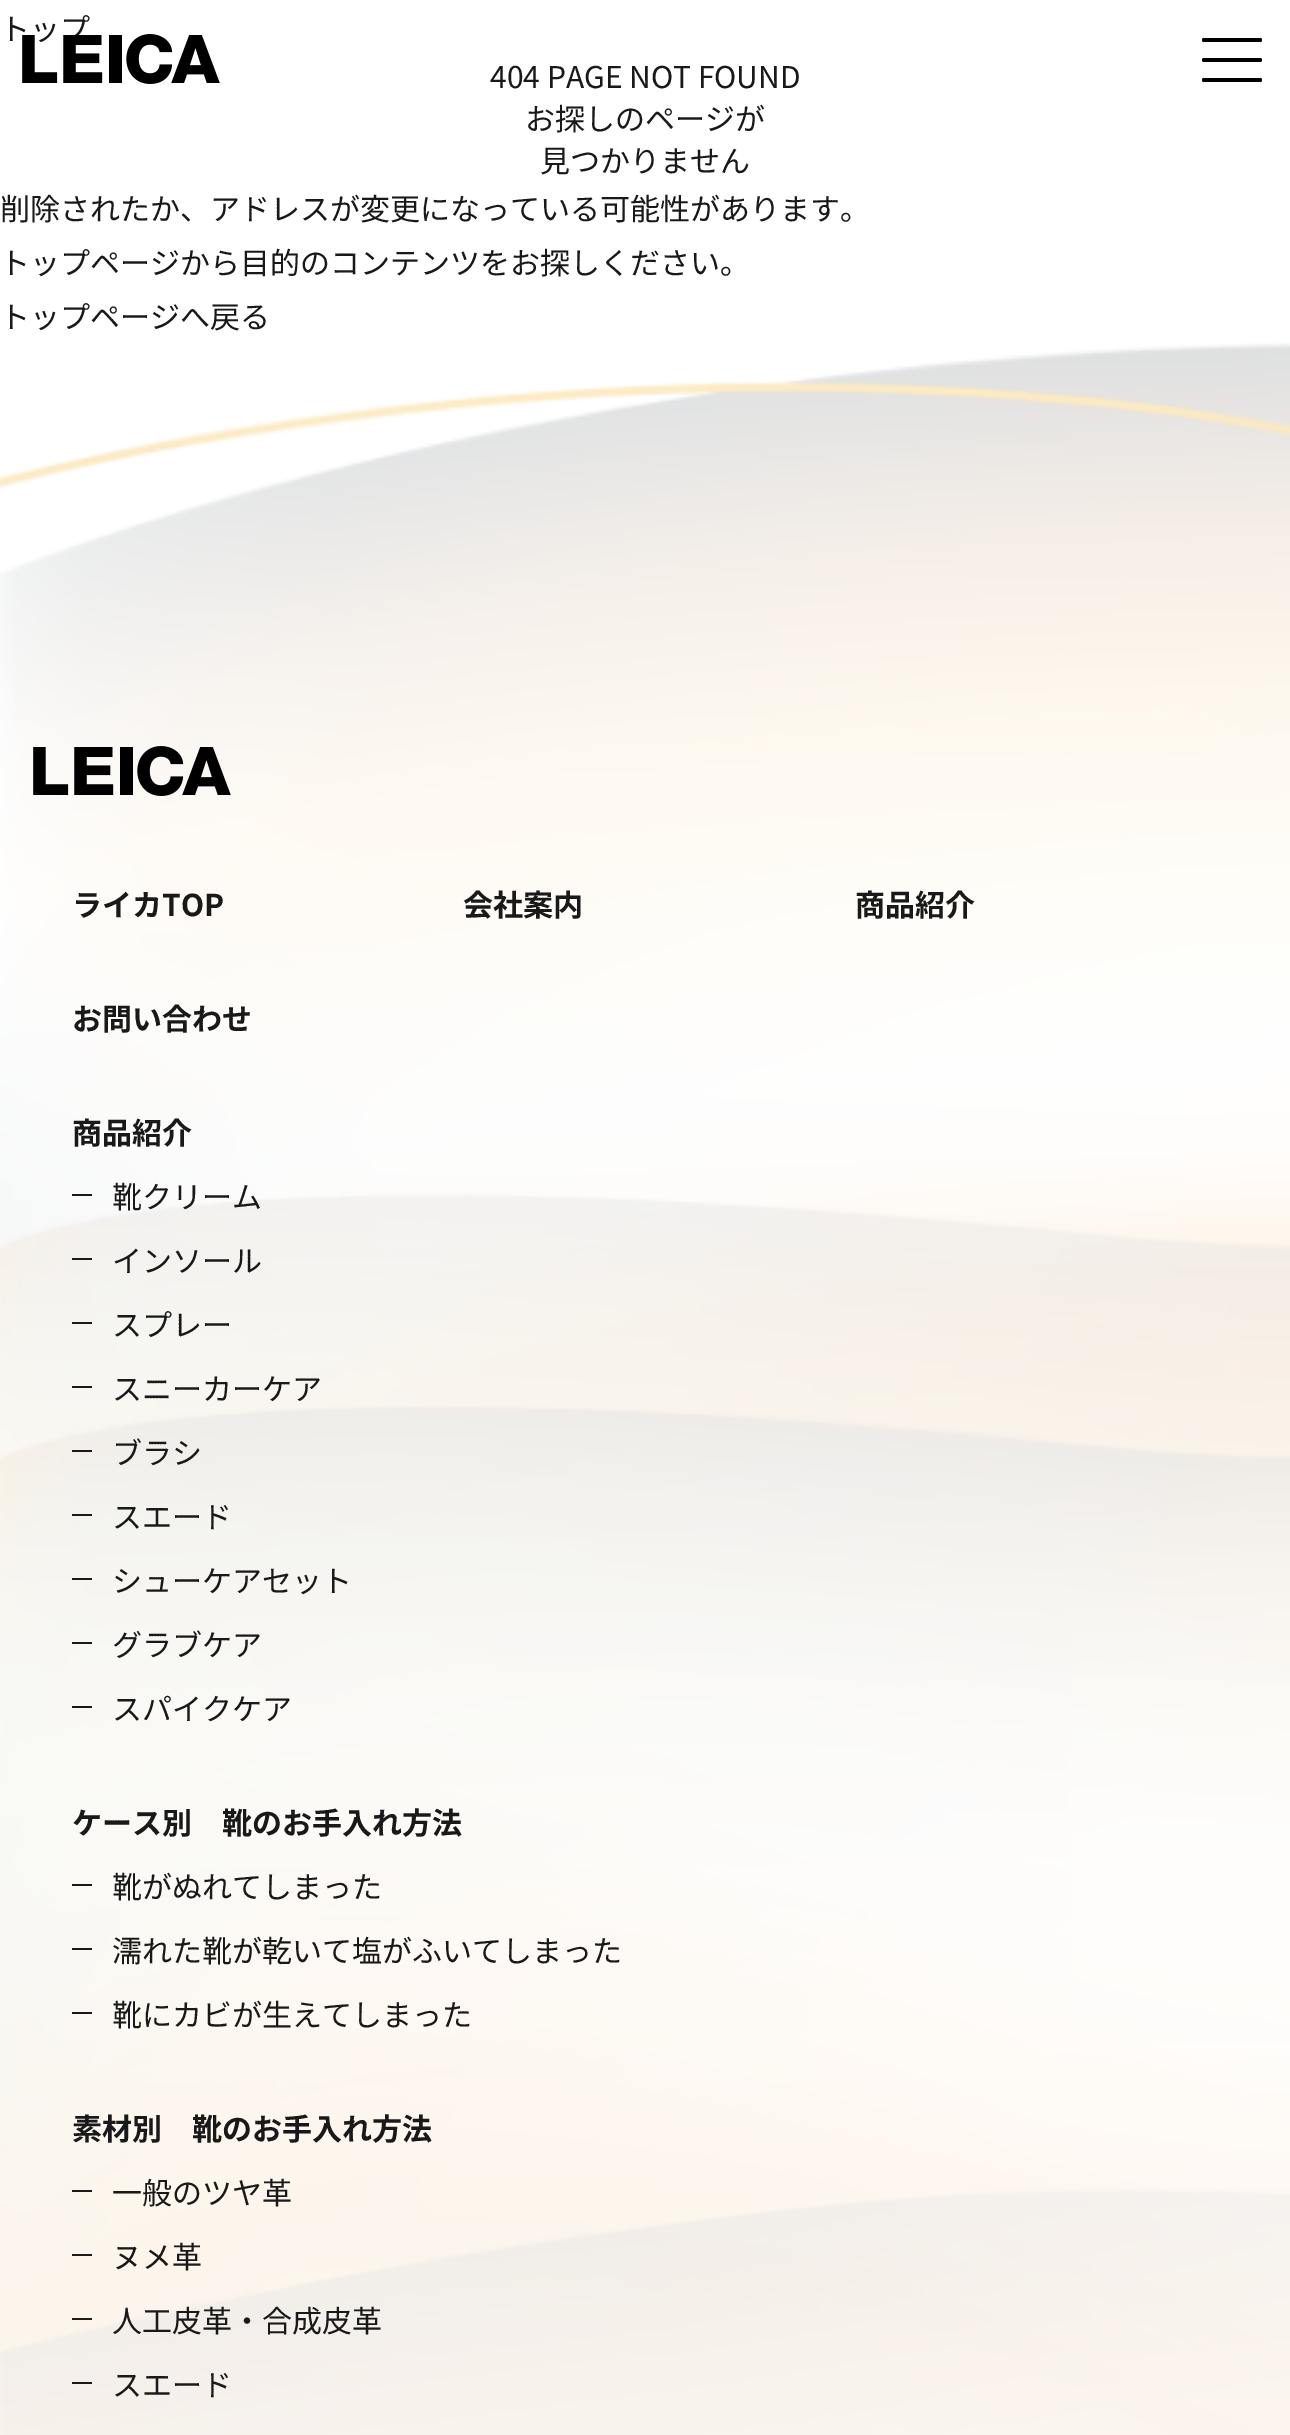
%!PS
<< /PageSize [1290 2435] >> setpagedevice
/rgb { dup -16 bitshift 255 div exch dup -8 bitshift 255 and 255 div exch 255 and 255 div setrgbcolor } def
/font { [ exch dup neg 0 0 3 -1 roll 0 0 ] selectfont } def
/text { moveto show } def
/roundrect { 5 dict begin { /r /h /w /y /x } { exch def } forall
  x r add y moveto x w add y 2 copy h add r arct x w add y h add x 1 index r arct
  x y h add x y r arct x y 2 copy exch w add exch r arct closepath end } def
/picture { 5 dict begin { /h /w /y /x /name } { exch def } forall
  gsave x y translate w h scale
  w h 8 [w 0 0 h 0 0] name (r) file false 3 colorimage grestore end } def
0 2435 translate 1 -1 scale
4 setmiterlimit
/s1 { /NotoSansJP-Regular 30 font 16#191919 rgb } def
/s2 { /NotoSansJP-Bold 30 font 16#191919 rgb } def
16#FFFFFF rgb
0 0 1290 2435 rectfill
s1
(トップ) 0 40 text
(404 PAGE NOT FOUND) 490 88 text
(お探しのページが) 525 130 text
(見つかりません) 540 172 text
(削除されたか、アドレスが変更になっている可能性があります。) 0 220 text
(トップページから目的のコンテンツをお探しください。) 0 274 text
(トップページへ戻る) 0 328 text
(pic1.raw) 22 34 198 50 picture
16#000000 rgb
1202 38 60 4 2 roundrect fill
1202 58 60 4 2 roundrect fill
1202 78 60 4 2 roundrect fill
(pic2.raw) 0 342 1290 2093 picture
(pic3.raw) 33 746 198 50 picture
s2
(ライカTOP) 72 916 text
(会社案内) 463 916 text
(商品紹介) 855 916 text
(お問い合わせ) 72 1030 text
(商品紹介) 72 1144 text
72 1194 20 2 rectfill
s1
(靴クリーム) 112 1208 text
72 1258 20 2 rectfill
(インソール) 112 1272 text
72 1322 20 2 rectfill
(スプレー) 112 1336 text
72 1386 20 2 rectfill
(スニーカーケア) 112 1400 text
72 1450 20 2 rectfill
(ブラシ) 112 1464 text
72 1514 20 2 rectfill
(スエード) 112 1528 text
72 1578 20 2 rectfill
(シューケアセット) 112 1592 text
72 1642 20 2 rectfill
(グラブケア) 112 1656 text
72 1706 20 2 rectfill
(スパイクケア) 112 1720 text
s2
(ケース別　靴のお手入れ方法) 72 1834 text
72 1884 20 2 rectfill
s1
(靴がぬれてしまった) 112 1898 text
72 1948 20 2 rectfill
(濡れた靴が乾いて塩がふいてしまった) 112 1962 text
72 2012 20 2 rectfill
(靴にカビが生えてしまった) 112 2026 text
s2
(素材別　靴のお手入れ方法) 72 2140 text
72 2190 20 2 rectfill
s1
(一般のツヤ革) 112 2204 text
72 2254 20 2 rectfill
(ヌメ革) 112 2268 text
72 2318 20 2 rectfill
(人工皮革・合成皮革) 112 2332 text
72 2382 20 2 rectfill
(スエード) 112 2396 text
showpage
